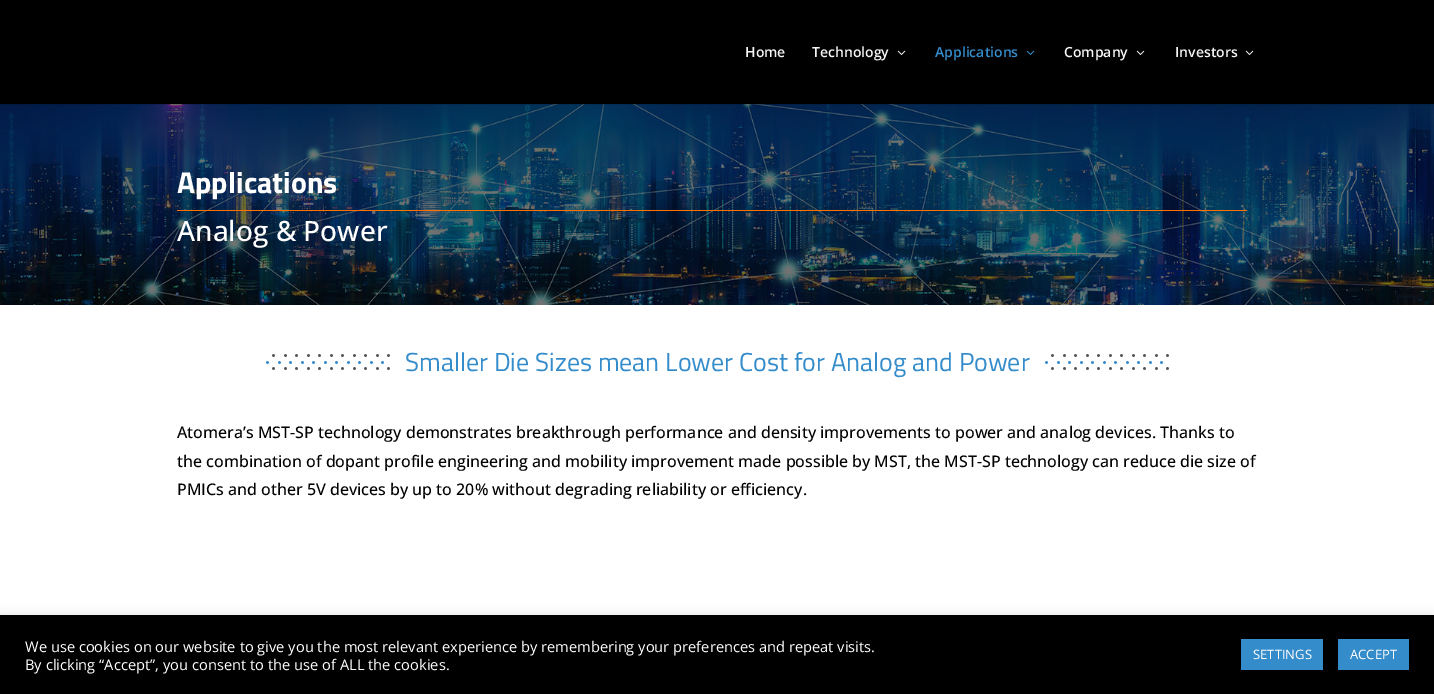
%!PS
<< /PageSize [1434 694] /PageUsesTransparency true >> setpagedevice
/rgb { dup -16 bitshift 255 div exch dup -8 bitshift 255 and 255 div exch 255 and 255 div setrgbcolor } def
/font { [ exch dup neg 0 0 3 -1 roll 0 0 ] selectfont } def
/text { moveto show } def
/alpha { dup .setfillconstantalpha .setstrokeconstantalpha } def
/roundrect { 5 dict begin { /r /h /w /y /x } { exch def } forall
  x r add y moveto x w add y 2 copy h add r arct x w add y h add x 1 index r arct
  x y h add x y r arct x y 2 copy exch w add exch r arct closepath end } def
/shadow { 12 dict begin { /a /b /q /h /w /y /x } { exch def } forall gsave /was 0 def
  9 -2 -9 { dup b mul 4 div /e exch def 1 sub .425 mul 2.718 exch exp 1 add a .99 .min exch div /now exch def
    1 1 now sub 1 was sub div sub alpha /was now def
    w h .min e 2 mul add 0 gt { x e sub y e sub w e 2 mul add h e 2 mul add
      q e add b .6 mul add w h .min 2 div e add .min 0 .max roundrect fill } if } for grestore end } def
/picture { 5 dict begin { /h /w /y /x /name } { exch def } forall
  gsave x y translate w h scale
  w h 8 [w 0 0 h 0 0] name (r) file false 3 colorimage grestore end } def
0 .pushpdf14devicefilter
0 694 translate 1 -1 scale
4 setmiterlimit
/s1 { /OpenSans-SemiBold 14 font 16#F5F5F5 rgb } def
/s2 { /OpenSans-SemiBold 14 font 16#358CCB rgb } def
/s3 { /TitilliumWeb-Bold 30 font 16#FFFFFF rgb } def
/s4 { /OpenSans-Medium 28 font 16#FFFFFF rgb } def
/s5 { /TitilliumWeb-Regular 26 font 16#358CCB rgb } def
/s6 { /OpenSans-Medium 16 font 16#000000 rgb } def
/s7 { /OpenSans-Regular 14.67 font 16#FFFFFF rgb } def
/s8 { /OpenSans-Regular 13 font 16#FFFFFF rgb } def
16#FFFFFF rgb
0 0 1434 694 rectfill
(pic3.raw) 0 104 1434 201 picture
0.1 alpha
16#000000 rgb
0 104 1434 1 rectfill
1 alpha
0 0 1434 104 rectfill
s1
(Home) 745 57 text
(Technology) 812 57 text
(pic1.raw) 897 50 9 5 picture
s2
(Applications) 935 57 text
(pic2.raw) 1026 50 9 5 picture
s1
(Company) 1064 57 text
(pic1.raw) 1136 50 9 5 picture
(Investors) 1175 57 text
(pic1.raw) 1245 50 9 5 picture
16#FF7200 rgb
177 210 1070 1 rectfill
s3
(Applications) 177 193 text
s4
(Analog & Power) 177 241 text
(pic4.raw) 266 354 124 16 picture
s5
(Smaller Die Sizes mean Lower Cost for Analog and Power) 405 371 text
(pic4.raw) 1045 354 124 16 picture
s6
(Atomera’s MST-SP technology demonstrates breakthrough performance and density improvements to power and analog devices. Thanks to) 177 438 text
(the combination of dopant profile engineering and mobility improvement made possible by MST, the MST-SP technology can reduce die size of) 177 467 text
(PMICs and other 5V devices by up to 20% without degrading reliability or efficiency.) 177 495 text
16#ACABAB rgb
0 614 1434 79 0 5 0.3 shadow
16#000000 rgb
0 615 1434 79 rectfill
s7
(We use cookies on our website to give you the most relevant experience by remembering your preferences and repeat visits.) 25 652 text
(By clicking “Accept”, you consent to the use of ALL the cookies.) 25 670 text
16#358CCB rgb
1241 639 82 31 rectfill
s8
(SETTINGS) 1253 659 text
16#358CCB rgb
1338 639 71 31 rectfill
s8
(ACCEPT) 1350 659 text
.poppdf14devicefilter showpage
